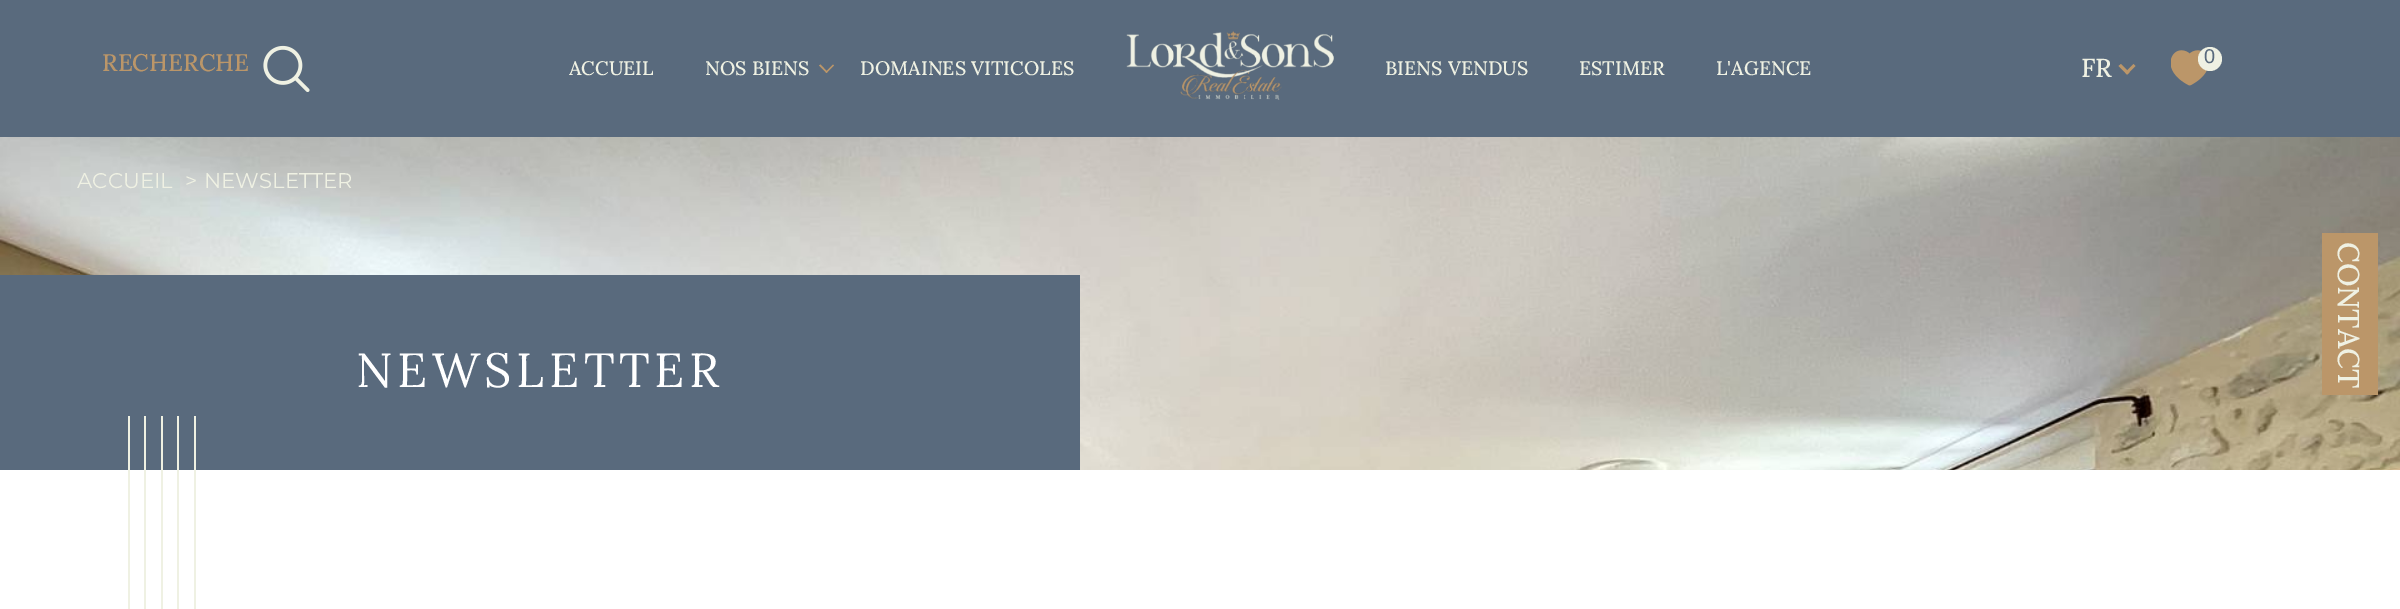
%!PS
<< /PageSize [2400 609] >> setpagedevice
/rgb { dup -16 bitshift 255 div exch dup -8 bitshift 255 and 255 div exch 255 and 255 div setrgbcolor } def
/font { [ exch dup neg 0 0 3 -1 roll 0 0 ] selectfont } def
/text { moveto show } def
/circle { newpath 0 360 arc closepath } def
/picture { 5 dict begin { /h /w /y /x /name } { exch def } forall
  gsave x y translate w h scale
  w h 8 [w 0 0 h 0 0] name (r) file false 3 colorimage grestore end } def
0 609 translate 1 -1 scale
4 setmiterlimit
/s1 { /Lora-Medium 24 font 16#BB9669 rgb } def
/s2 { /LiberationSans-Regular 20 font 16#596A7D rgb } def
/s3 { /Lora-Medium 26 font 16#EFF1E3 rgb } def
/s4 { /Lora-Medium 19.5 font 16#EFF1E3 rgb } def
/s5 { /Montserrat-Regular 21.25 font 16#EFF1E3 rgb } def
16#FFFFFF rgb
0 0 2400 609 rectfill
16#596A7D rgb
0 0 2400 137 rectfill
s1
(RECHERCHE) 102 71 text
(pic1.raw) 263 45 47 47 picture
(pic2.raw) 2171 50 36 36 picture
16#EFF1E3 rgb
2210 59 12 circle fill
s2
(0) 2204 63 text
s3
(FR) 2081 77 text
16#BB9669 rgb
2133.5 64 moveto 2135.5 66 lineto 2127 74.5 lineto 2125 72.5 lineto closepath fill
2121 64 moveto 2129.5 72.5 lineto 2127 74.5 lineto 2118.5 66 lineto closepath fill
s4
(ACCUEIL) 569 75 text
(NOS BIENS) 705 75 text
16#BB9669 rgb
826.5 73 moveto 819 65.5 lineto 820.5 64.5 lineto 827.5 72 lineto closepath fill
826.5 73 moveto 825.5 72 lineto 833 64.5 lineto 834 65.5 lineto closepath fill
s4
(DOMAINES VITICOLES) 860 75 text
(pic3.raw) 1126 31 208 69 picture
(BIENS VENDUS) 1385 75 text
(ESTIMER) 1579 75 text
(L'AGENCE) 1716 75 text
(pic4.raw) 0 137 2400 333 picture
16#BB9669 rgb
2322 233 56 162 rectfill
/Lora-Medium 30 font
16#EFF1E3 rgb
gsave 2338 242 translate 90 rotate 0 0 moveto (CONTACT) show grestore
s5
(ACCUEIL) 77 188 text
(>) 185 188 text
(NEWSLETTER) 204 188 text
16#596A7D rgb
0 275 1080 195 rectfill
/Lora-Regular 48 font
16#FFFFFF rgb
356 387 moveto 4.75 0 (NEWSLETTER) ashow
16#EFF1E3 rgb
128 416 2 193 rectfill
144 416 2 193 rectfill
161 416 2 193 rectfill
177 416 2 193 rectfill
194 416 2 193 rectfill
showpage
